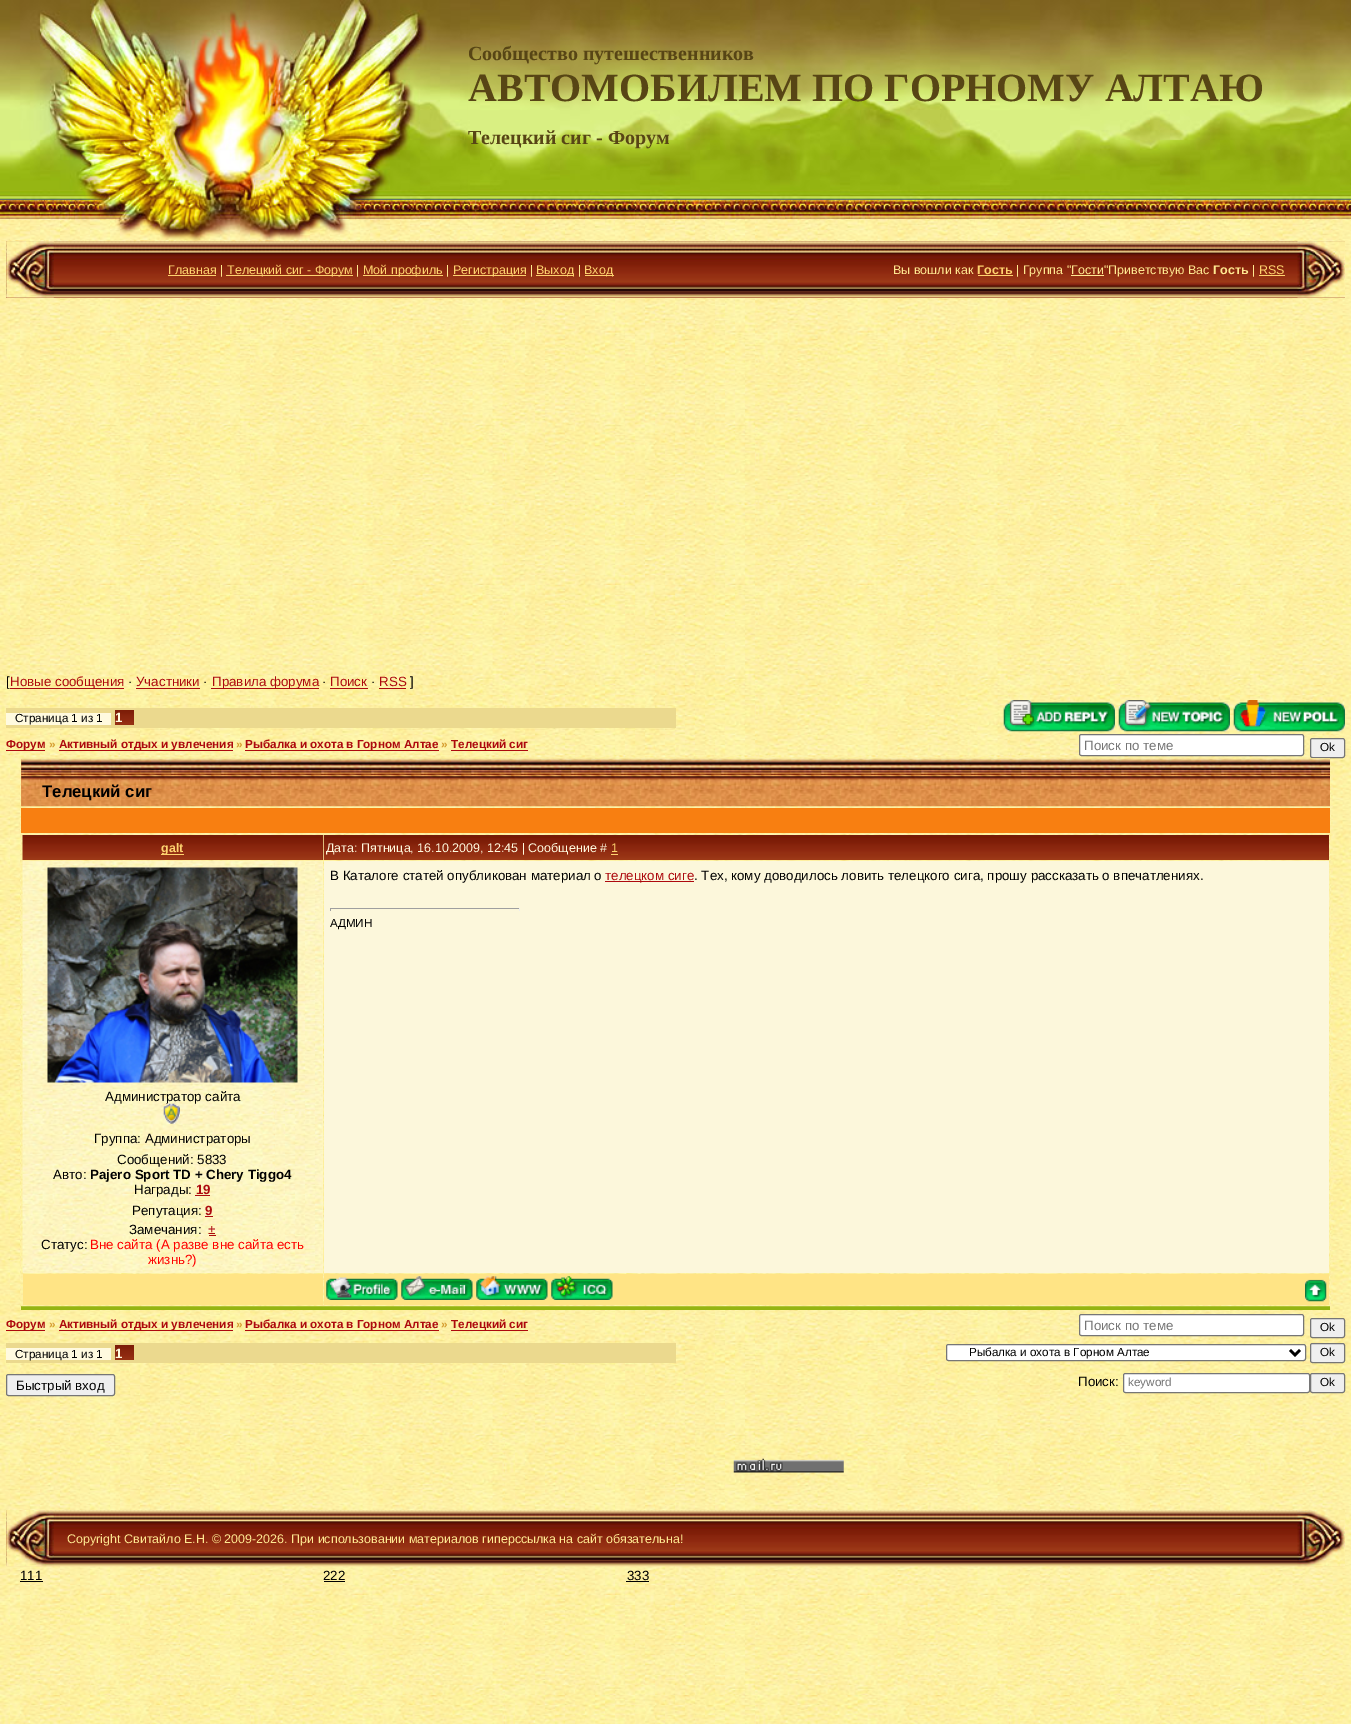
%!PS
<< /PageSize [1351 1724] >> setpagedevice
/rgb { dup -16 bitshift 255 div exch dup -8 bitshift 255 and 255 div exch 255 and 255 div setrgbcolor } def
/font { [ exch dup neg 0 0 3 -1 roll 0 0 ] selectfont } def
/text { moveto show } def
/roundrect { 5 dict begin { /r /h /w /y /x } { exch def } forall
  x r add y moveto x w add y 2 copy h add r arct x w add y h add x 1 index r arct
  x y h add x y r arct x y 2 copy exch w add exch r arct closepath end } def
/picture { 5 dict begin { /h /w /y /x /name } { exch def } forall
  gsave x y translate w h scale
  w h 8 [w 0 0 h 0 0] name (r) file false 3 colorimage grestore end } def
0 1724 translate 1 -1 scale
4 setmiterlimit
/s1 { /LiberationSerif-Bold 20 font 16#574515 rgb } def
/s2 { /LiberationSerif-Bold 40 font 16#574515 rgb } def
/s3 { /LiberationSans-Regular 12.5 font 16#FED36F rgb } def
/s4 { /LiberationSans-Regular 12.5 font 16#FFE991 rgb } def
/s5 { /LiberationSans-Bold 12.5 font 16#FED36F rgb } def
/s6 { /LiberationSans-Bold 12.5 font 16#FFE991 rgb } def
/s7 { /LiberationSans-Regular 13.35 font 16#000000 rgb } def
/s8 { /LiberationSans-Regular 13.35 font 16#AD090E rgb } def
/s9 { /LiberationSans-Regular 11.7 font 16#000000 rgb } def
/s10 { /LiberationSans-Bold 13.35 font 16#FFFADF rgb } def
/s11 { /LiberationSans-Bold 11.7 font 16#AD090E rgb } def
/s12 { /LiberationSans-Bold 11.7 font 16#D69D30 rgb } def
/s13 { /LiberationSans-Regular 13.35 font 16#757575 rgb } def
/s14 { /LiberationSans-Bold 16.75 font 16#000000 rgb } def
/s15 { /LiberationSans-Regular 12.5 font 16#FFFADF rgb } def
/s16 { /LiberationSans-Bold 13.35 font 16#000000 rgb } def
/s17 { /LiberationSans-Bold 13.35 font 16#AD090E rgb } def
/s18 { /LiberationSans-Regular 13.35 font 16#FF0000 rgb } def
/s19 { /LiberationSans-Regular 11.7 font 16#757575 rgb } def
16#FFFFFF rgb
0 0 1351 1724 rectfill
(pic1.raw) 0 218 1351 1506 picture
(pic2.raw) 467 0 884 219 picture
16#82210A rgb
6 241 1339 57 rectfill
(pic4.raw) 6 241 1339 57 picture
(pic3.raw) 0 0 468 242 picture
s1
(Сообщество путешественников) 468 60 text
s2
(АВТОМОБИЛЕМ ПО ГОРНОМУ АЛТАЮ) 468 101 text
s1
(Телецкий сиг - Форум) 468 144 text
(pic5.raw) 6 241 48 57 picture
s3
(Главная) 168 274 text
168 275 48 1 rectfill
s4
(|) 220 274 text
16#FED36F rgb
226 275 127 1 rectfill
(Телецкий сиг - Форум) 227 274 text
s4
(|) 356 274 text
16#FED36F rgb
363 275 80 1 rectfill
(Мой профиль) 363 274 text
s4
(|) 446 274 text
16#FED36F rgb
453 275 73 1 rectfill
(Регистрация) 453 274 text
s4
(|) 530 274 text
16#FED36F rgb
536 275 38 1 rectfill
(Выход) 536 274 text
s4
(|) 578 274 text
16#FED36F rgb
585 275 29 1 rectfill
(Вход) 584 274 text
s4
(Вы вошли как) 893 274 text
s5
(Гость) 977 274 text
978 275 35 1 rectfill
s4
(| Группа "Гости"Приветствую Вас) 1016 274 text
s6
(Гость) 1213 274 text
s4
(|) 1252 274 text
s3
(RSS) 1259 274 text
1259 275 26 1 rectfill
16#FFE991 rgb
1071 275 33 1 rectfill
(pic6.raw) 1297 241 48 57 picture
s7
([) 6 686 text
16#AD090E rgb
10 688 114 1 rectfill
(Новые сообщения) 10 686 text
s7
(·) 128 686 text
s8
(Участники) 136 686 text
136 688 64 1 rectfill
s7
(·) 203 686 text
16#AD090E rgb
211 688 108 1 rectfill
(Правила форума) 212 686 text
s7
(·) 322 686 text
s8
(Поиск) 330 686 text
330 688 38 1 rectfill
s7
(·) 371 686 text
s8
(RSS) 379 686 text
379 688 27 1 rectfill
s7
(]) 410 686 text
16#EBD98E rgb
6 708 670 20 rectfill
16#FFFADF rgb
6 713 105 12 rectfill
s9
(Страница 1 из 1) 15 722 text
(pic7.raw) 115 710 19 15 picture
s10
(1) 115 722 text
(pic8.raw) 1003 700 112 32 picture
(pic9.raw) 1118 700 112 32 picture
(pic10.raw) 1233 700 112 32 picture
16#AD090E rgb
6 750 39 1 rectfill
s11
(Форум) 6 748 text
s12
(») 49 748 text
16#AD090E rgb
59 750 174 1 rectfill
(Активный отдых и увлечения) 59 748 text
s12
(») 236 748 text
16#AD090E rgb
245 750 194 1 rectfill
(Рыбалка и охота в Горном Алтае) 245 748 text
s12
(») 441 748 text
16#AD090E rgb
451 750 77 1 rectfill
(Телецкий сиг) 451 748 text
16#FFFFFF rgb
1079.5 734.5 224 21 2 roundrect gsave fill grestore
16#767676 rgb
stroke
s13
(Поиск по теме) 1084 750 text
(pic11.raw) 20 757 1312 555 picture
16#EFEFEF rgb
1310.5 738.5 34 19 2 roundrect gsave fill grestore
16#767676 rgb
stroke
s9
(Ok) 1320 751 text
(pic12.raw) 21 758 1309 49 picture
s14
(Телецкий сиг) 42 797 text
16#F87F11 rgb
21 808 1309 25 rectfill
16#95B412 rgb
21 1306 1309 4 rectfill
(pic13.raw) 21 833 1309 474 picture
16#82210A rgb
322 835 1 25 rectfill
(pic14.raw) 22 835 301 25 picture
16#FED36F rgb
161 854 23 1 rectfill
s5
(galt) 161 852 text
(pic15.raw) 323 835 1006 25 picture
s15
(Дата: Пятница, 16.10.2009, 12:45 | Сообщение #) 326 852 text
s3
(1) 611 852 text
611 854 7 1 rectfill
16#FCF7DB rgb
324 861 1005 412 rectfill
s7
(В Каталоге статей опубликован материал о) 330 880 text
16#AD090E rgb
605 881 89 1 rectfill
(телецком сиге) 605 880 text
s7
(. Тех, кому доводилось ловить телецкого сига, прошу рассказать о впечатлениях.) 694 880 text
16#9F9F9F rgb
330 908 190 1 rectfill
16#EEEEEE rgb
519 908 1 3 rectfill
16#9F9F9F rgb
330 908 1 3 rectfill
s9
(АДМИН) 330 927 text
16#FFF7C2 rgb
23 861 300 412 rectfill
(pic16.raw) 22 861 301 412 picture
(pic17.raw) 47 867 251 216 picture
s7
(Администратор сайта) 105 1101 text
(pic18.raw) 163 1103 17 21 picture
(Группа: Администраторы) 94 1143 text
(Сообщений: 5833) 117 1164 text
(Авто:) 53 1179 text
s16
(Pajero Sport TD + Chery Tiggo4) 90 1179 text
s7
(Награды:) 134 1194 text
s17
(19) 196 1194 text
195 1195 15 1 rectfill
s7
(Репутация:) 132 1215 text
s17
(9) 205 1215 text
205 1216 8 1 rectfill
s7
(Замечания:) 129 1234 text
s8
(±) 208 1234 text
209 1235 7 1 rectfill
s7
(Статус:) 41 1249 text
s18
(Вне сайта \(А разве вне сайта есть) 90 1249 text
(жизнь?\)) 148 1264 text
16#FFE485 rgb
23 1274 300 31 rectfill
324 1274 1005 31 rectfill
(pic19.raw) 326 1277 72 23 picture
(pic20.raw) 401 1276 72 24 picture
(pic21.raw) 476 1276 72 24 picture
(pic22.raw) 551 1276 62 24 picture
(pic23.raw) 1305 1279 22 23 picture
16#AD090E rgb
6 1330 39 1 rectfill
s11
(Форум) 6 1328 text
s12
(») 49 1328 text
16#AD090E rgb
59 1330 174 1 rectfill
(Активный отдых и увлечения) 59 1328 text
s12
(») 236 1328 text
16#AD090E rgb
245 1330 194 1 rectfill
(Рыбалка и охота в Горном Алтае) 245 1328 text
s12
(») 441 1328 text
16#AD090E rgb
451 1330 77 1 rectfill
(Телецкий сиг) 451 1328 text
16#FFFFFF rgb
1079.5 1314.5 224 21 2 roundrect gsave fill grestore
16#767676 rgb
stroke
s13
(Поиск по теме) 1084 1330 text
16#EFEFEF rgb
1310.5 1318.5 34 19 2 roundrect gsave fill grestore
16#767676 rgb
stroke
s9
(Ok) 1320 1331 text
16#EBD98E rgb
6 1343 670 20 rectfill
16#FFFADF rgb
6 1348 105 12 rectfill
s9
(Страница 1 из 1) 15 1358 text
(pic7.raw) 115 1345 19 15 picture
s10
(1) 115 1358 text
16#FFFFFF rgb
946.5 1344.5 359 16 2 roundrect gsave fill grestore
16#767676 rgb
stroke
16#000000 rgb
2.5 setlinewidth
1290 1350 moveto 1295 1355 lineto 1300 1350 lineto stroke
s9
(Рыбалка и охота в Горном Алтае) 969 1356 text
16#EFEFEF rgb
1310.5 1343.5 34 19 2 roundrect gsave fill grestore
16#767676 rgb
1 setlinewidth
stroke
s9
(Ok) 1320 1356 text
16#EFEFEF rgb
6.5 1374.5 108 21 2 roundrect gsave fill grestore
16#767676 rgb
stroke
s7
(Быстрый вход) 16 1390 text
(Поиск:) 1078 1386 text
16#FFFFFF rgb
1123.5 1373.5 186 19 2 roundrect gsave fill grestore
16#767676 rgb
stroke
s19
(keyword) 1128 1386 text
16#EFEFEF rgb
1310.5 1373.5 34 19 2 roundrect gsave fill grestore
16#767676 rgb
stroke
s9
(Ok) 1320 1386 text
(pic24.raw) 733 1458 111 15 picture
(pic25.raw) 6 1510 1339 57 picture
(pic26.raw) 6 1510 48 57 picture
s4
(Copyright Свитайло Е.Н. © 2009-2026. При использовании материалов гиперссылка на сайт обязательна!) 67 1543 text
(pic27.raw) 1297 1510 48 57 picture
s7
(111) 20 1580 text
20 1581 23 1 rectfill
(222) 323 1580 text
324 1581 21 1 rectfill
(333) 627 1580 text
626 1581 23 1 rectfill
showpage
